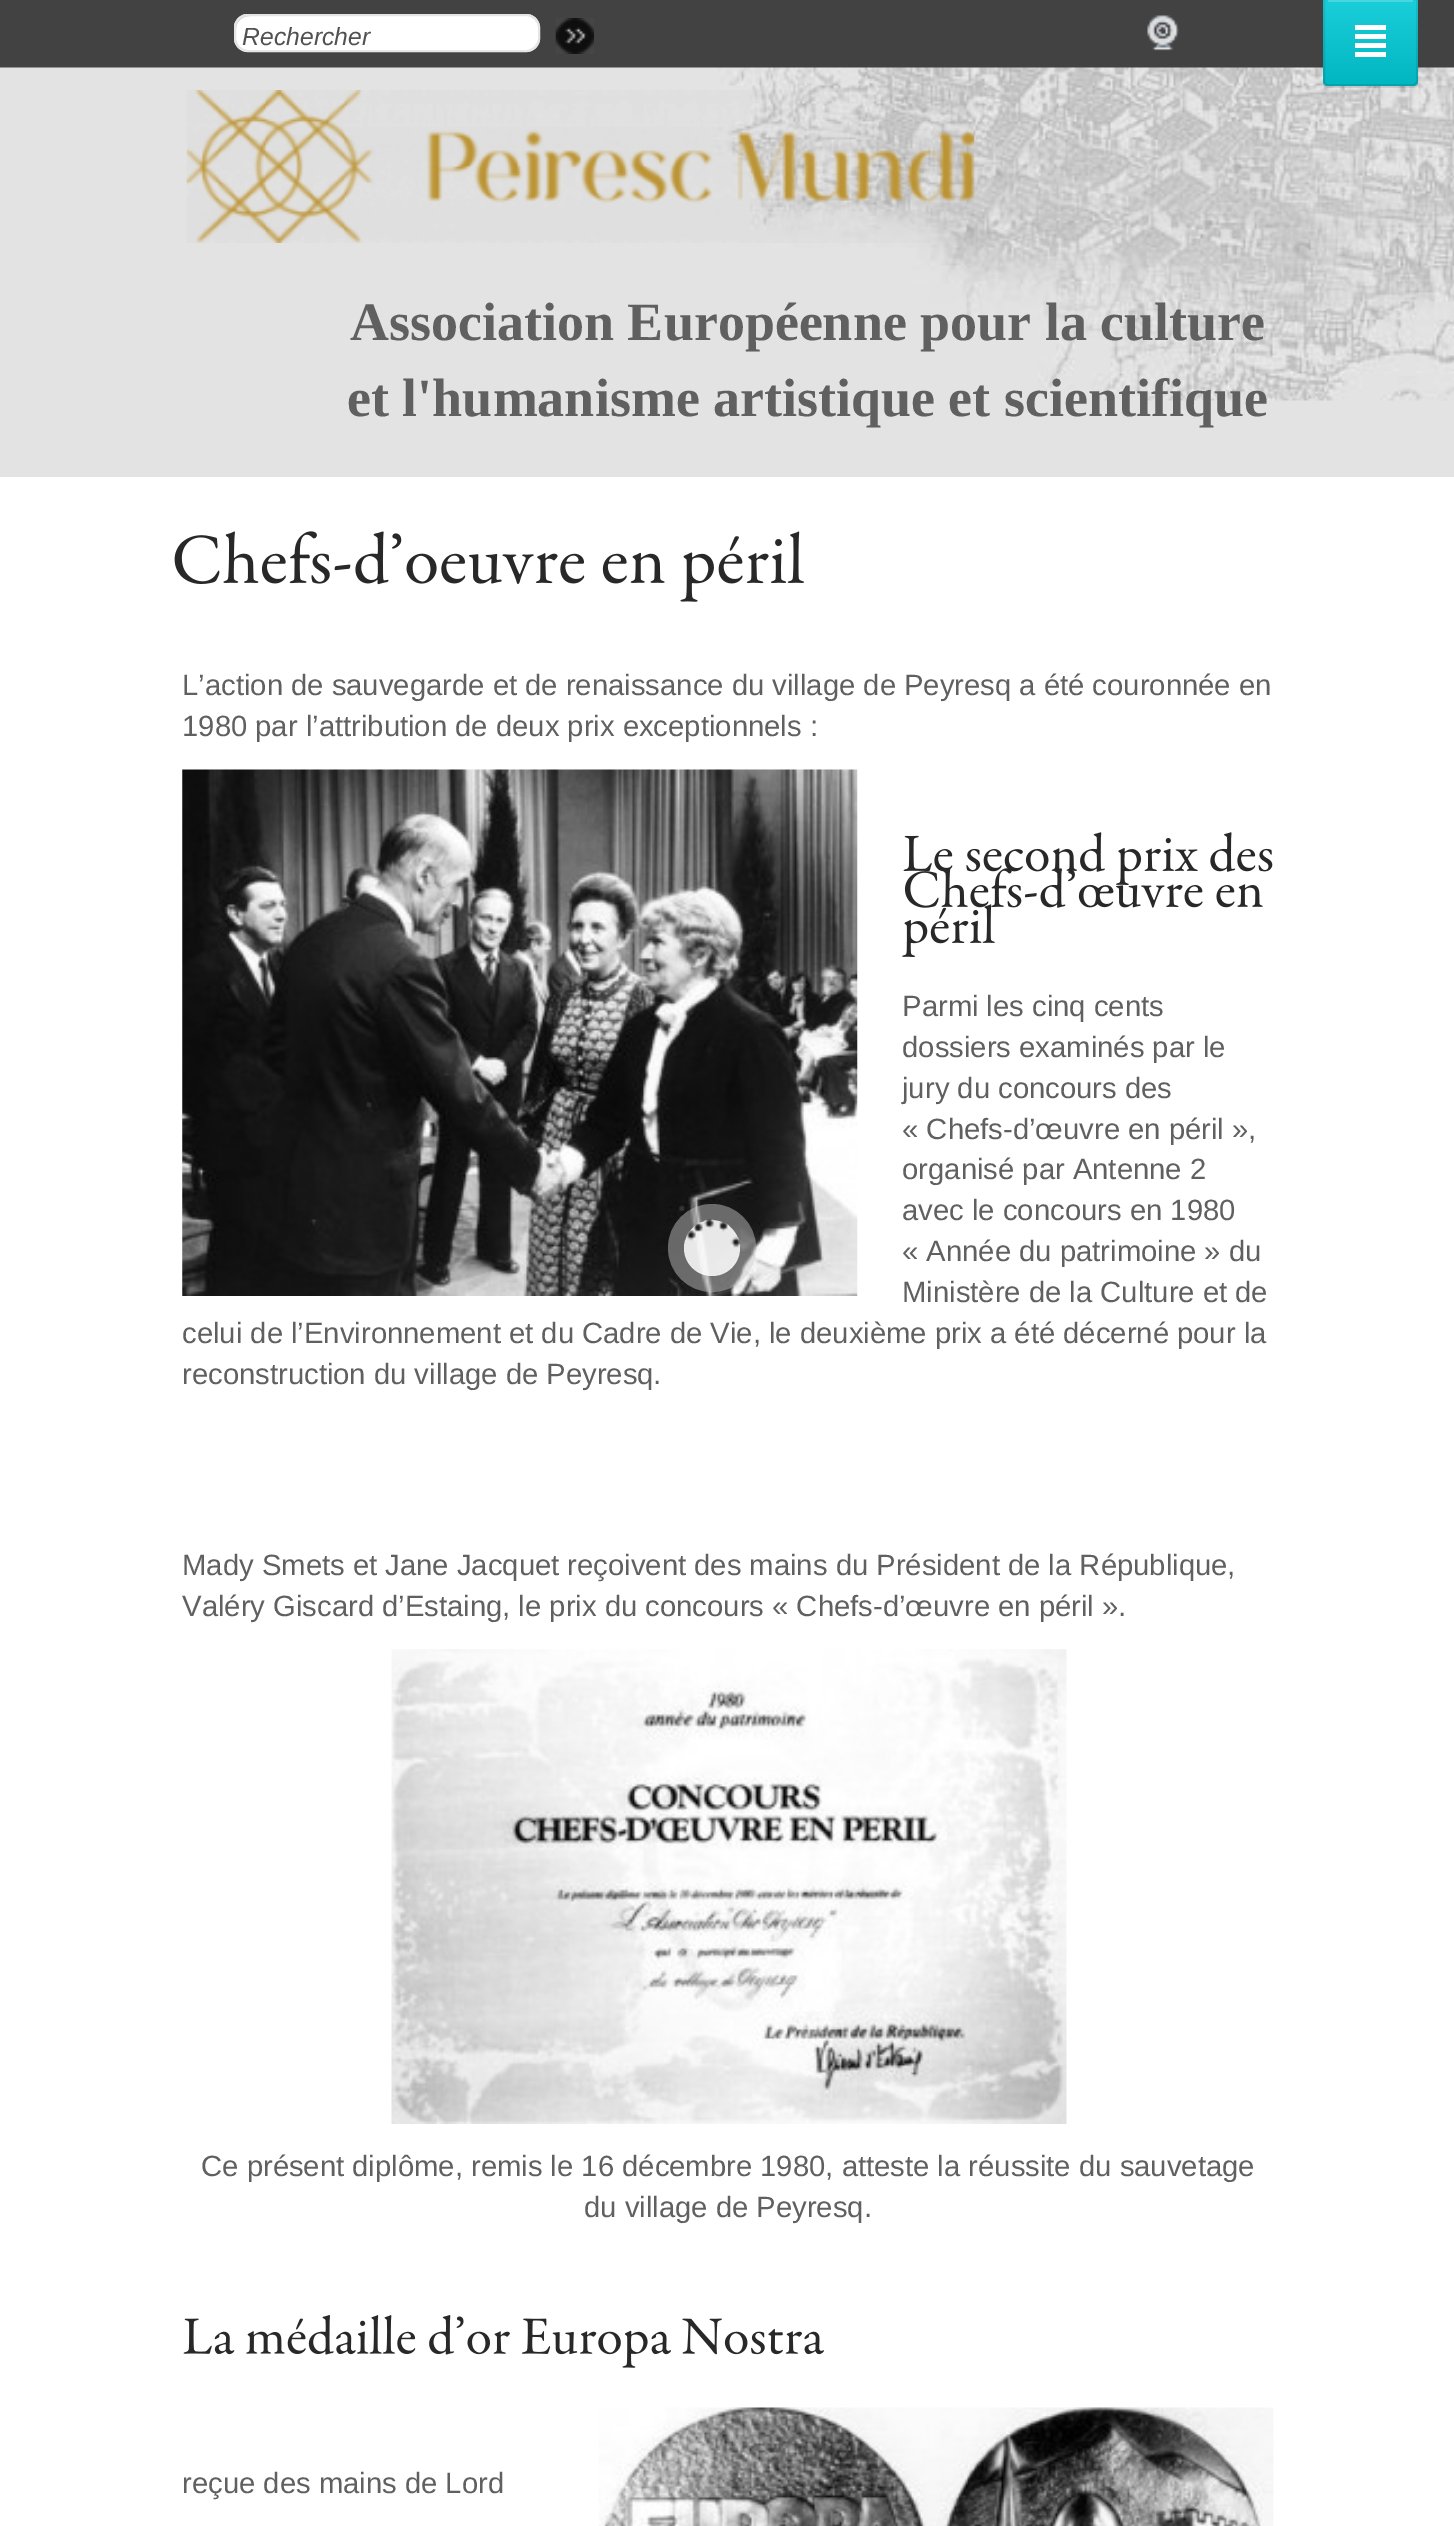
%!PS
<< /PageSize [1454 2526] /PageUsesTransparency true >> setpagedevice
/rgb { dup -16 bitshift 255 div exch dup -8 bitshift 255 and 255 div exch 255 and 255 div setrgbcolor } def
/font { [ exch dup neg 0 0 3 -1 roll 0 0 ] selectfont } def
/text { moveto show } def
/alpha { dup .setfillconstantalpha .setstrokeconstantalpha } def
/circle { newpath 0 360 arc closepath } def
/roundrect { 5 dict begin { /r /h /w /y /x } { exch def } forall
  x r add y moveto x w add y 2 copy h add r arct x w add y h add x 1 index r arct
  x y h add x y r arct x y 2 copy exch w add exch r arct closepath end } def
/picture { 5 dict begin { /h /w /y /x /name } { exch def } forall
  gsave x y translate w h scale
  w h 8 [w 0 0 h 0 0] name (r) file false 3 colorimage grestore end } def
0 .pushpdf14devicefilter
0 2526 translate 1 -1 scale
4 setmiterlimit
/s1 { /LiberationSans-Italic 24.75 font 16#515151 rgb } def
/s2 { /LiberationSerif-Bold 54 font 16#606060 rgb } def
/s3 { /LiberationSans-Regular 29.25 font 16#606060 rgb } def
16#FFFFFF rgb
0 0 1454 2526 rectfill
16#424242 rgb
0 0 1454 68 rectfill
16#FFFFFF rgb
234 14 306 38 14 roundrect fill
16#C9C9C9 rgb
250 16 moveto 529 16 lineto 531 16 534 17 536 18 curveto 533 16 530 14 526 14 curveto 248 14 lineto 240 14 234 20 234 28 curveto 234 38 lineto 234 42 236 46 239 48 curveto 237 46 236 43 236 40 curveto 236 29 lineto 236 22 242 16 250 16 curveto closepath fill
16#E5E5E5 rgb
2 setlinewidth
235 15 304 36 13 roundrect stroke
s1
(Rechercher) 242 45 text
(pic1.raw) 555 18 39 36 picture
(pic2.raw) 1147 15 32 36 picture
16#E3E3E3 rgb
0 400 1454 77 rectfill
(pic3.raw) 0 67 1454 334 picture
0.1 alpha
16#000000 rgb
1323 81 moveto 1323 83 lineto 1323 86 1325 88 1328 88 curveto 1413 88 lineto 1416 88 1418 86 1418 83 curveto 1418 0 lineto 1418 81 lineto 1418 83 1415 86 1413 86 curveto 1328 86 lineto 1325 86 1323 83 1323 81 curveto closepath fill
1 alpha
16#01C9D6 rgb
1323 -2 moveto 1418 -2 lineto 1418 81 lineto 1418 84 1416 86 1413 86 curveto 1328 86 lineto 1325 86 1323 84 1323 81 curveto closepath fill
0.1 alpha
16#000000 rgb
1324 -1 moveto 1417 -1 lineto 1417 81 lineto 1417 83 1415 85 1413 85 curveto 1328 85 lineto 1326 85 1324 83 1324 81 curveto closepath stroke
gsave 1323 -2 95 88 5 roundrect clip newpath
<< /ShadingType 2 /ColorSpace /DeviceRGB /Coords [1370 -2.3 1370 86] /Extend [true true] /Function << /FunctionType 3 /Domain [0 1] /Functions [<< /FunctionType 2 /Domain [0 1] /C0 [1 1 1] /C1 [0 0 0] /N 1 >> << /FunctionType 2 /Domain [0 1] /C0 [0 0 0] /C1 [0 0 0] /N 1 >>] /Bounds [0.99] /Encode [0 1 0 1] >> >> shfill grestore
1 alpha
16#47D7E0 rgb
1328 0 85 2 rectfill
16#FFFFFF rgb
1355 25 31 5 rectfill
1355 34 31 5 rectfill
1355 43 31 5 rectfill
1355 52 31 5 rectfill
(pic4.raw) 186 90 789 153 picture
s2
(Association Européenne pour la culture) 350 340 text
(et l'humanisme artistique et scientifique) 347 416 text
(pic5.raw) 174 531 630 71 picture
s3
(L’action de sauvegarde et de renaissance du village de Peyresq a été couronnée en) 182 695 text
(1980 par l’attribution de deux prix exceptionnels :) 182 736 text
(pic6.raw) 182 769 676 527 picture
(pic7.raw) 903 832 370 53 picture
(pic8.raw) 904 868 359 40 picture
(pic9.raw) 902 904 93 53 picture
(Parmi les cinq cents) 902 1016 text
(dossiers examinés par le) 902 1057 text
(jury du concours des) 902 1098 text
(« Chefs-d’œuvre en péril »,) 902 1139 text
(organisé par Antenne 2) 902 1179 text
(avec le concours en 1980) 902 1220 text
(« Année du patrimoine » du) 902 1261 text
(Ministère de la Culture et de) 902 1302 text
(celui de l’Environnement et du Cadre de Vie, le deuxième prix a été décerné pour la) 182 1343 text
(reconstruction du village de Peyresq.) 182 1384 text
(Mady Smets et Jane Jacquet reçoivent des mains du Président de la République,) 182 1575 text
(Valéry Giscard d’Estaing, le prix du concours « Chefs-d’œuvre en péril ».) 182 1616 text
(pic10.raw) 391 1649 676 475 picture
(Ce présent diplôme, remis le 16 décembre 1980, atteste la réussite du sauvetage) 201 2176 text
(du village de Peyresq.) 584 2217 text
(pic11.raw) 183 2315 641 53 picture
(reçue des mains de Lord) 182 2493 text
(pic12.raw) 598 2407 676 119 picture
0.45 alpha
16#CECECE rgb
16 setlinewidth
712 1248 36 circle stroke
0.9 alpha
16#FFFFFF rgb
712 1248 28 circle fill
1 alpha
(pic13.raw) 685 1219 56 29 picture
.poppdf14devicefilter showpage
